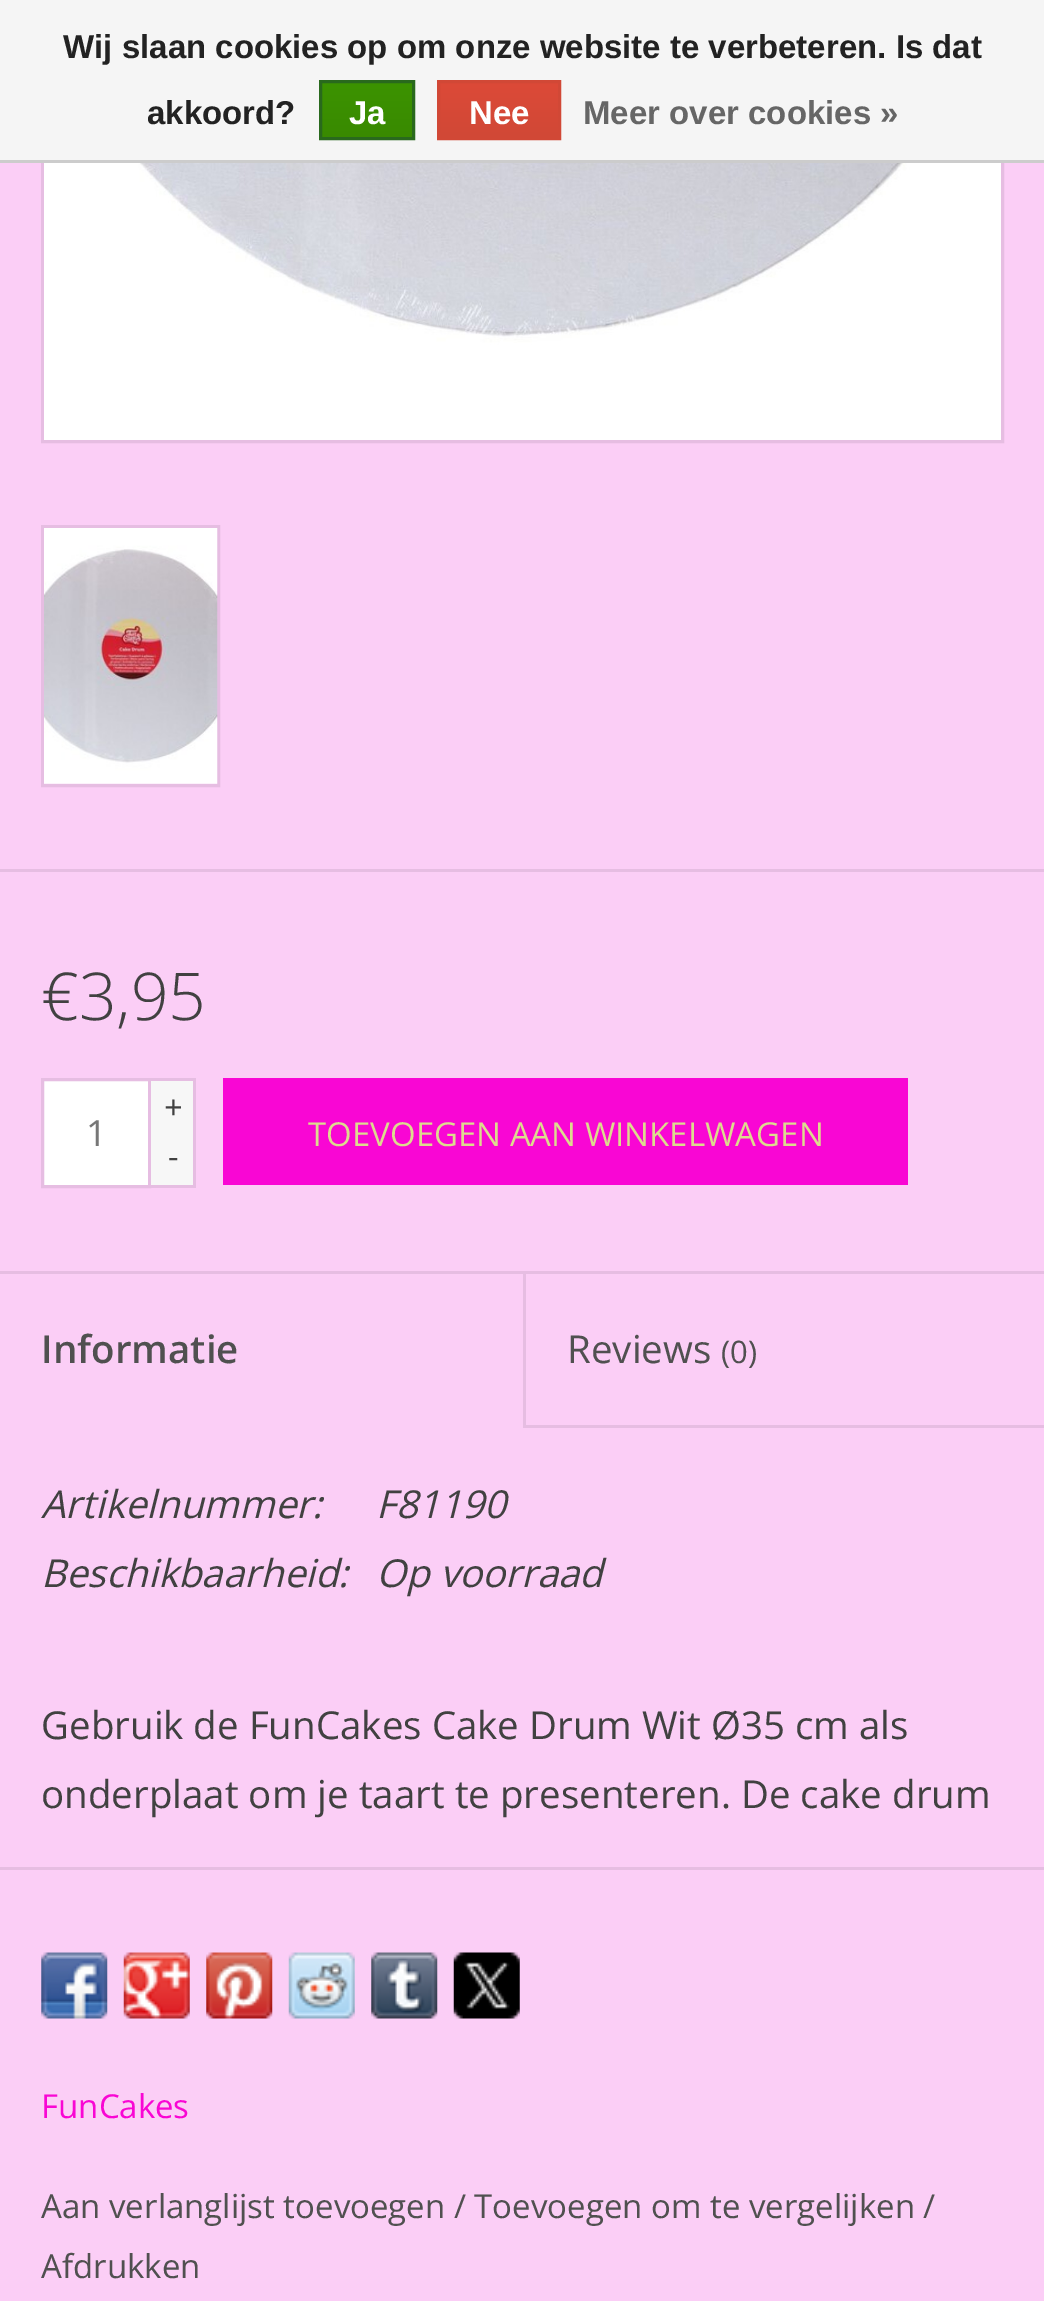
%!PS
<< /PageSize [1044 2301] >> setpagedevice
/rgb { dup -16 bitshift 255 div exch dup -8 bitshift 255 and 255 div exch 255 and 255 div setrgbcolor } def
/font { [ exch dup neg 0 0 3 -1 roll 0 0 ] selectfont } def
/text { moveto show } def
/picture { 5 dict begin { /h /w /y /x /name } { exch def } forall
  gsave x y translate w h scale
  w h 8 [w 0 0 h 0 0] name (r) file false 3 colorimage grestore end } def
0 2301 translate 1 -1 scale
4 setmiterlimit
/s1 { /LiberationSans-Bold 33 font 16#222222 rgb } def
/s2 { /LiberationSans-Bold 33 font 16#FFFFFF rgb } def
/s3 { /LiberationSans-Bold 33 font 16#666666 rgb } def
/s4 { /OpenSans-Light 66 font 16#414141 rgb } def
/s5 { /OpenSans-Regular 36 font 16#777777 rgb } def
/s6 { /OpenSans-Regular 33 font 16#414141 rgb } def
/s7 { /OpenSans-Regular 33 font 16#DDDB8E rgb } def
/s8 { /OpenSans-SemiBold 38.5 font 16#505050 rgb } def
/s9 { /OpenSans-Regular 38.5 font 16#505050 rgb } def
/s10 { /OpenSans-Regular 31 font 16#505050 rgb } def
/s11 { /OpenSans-Italic 38.5 font 16#414141 rgb } def
/s12 { /OpenSans-Regular 38.5 font 16#414141 rgb } def
/s13 { /OpenSans-Regular 33 font 16#F906D4 rgb } def
/s14 { /OpenSans-Regular 33 font 16#505050 rgb } def
16#FBCEF6 rgb
0 0 1044 2301 rectfill
16#E6BDE2 rgb
3 setlinewidth
42.5 -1.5 960 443 rectstroke
16#F5F5F5 rgb
0 0 1044 160 rectfill
16#CCCCCC rgb
0 160 1044 3 rectfill
s1
(Wij slaan cookies op om onze website te verbeteren. Is dat) 63 58 text
(akkoord?) 147 124 text
gsave 322 83 moveto 412 83 lineto 412 137 lineto 322 137 lineto closepath clip newpath
<< /ShadingType 2 /ColorSpace /DeviceRGB /Coords [367 83 367 138] /Extend [true true] /Function << /FunctionType 2 /Domain [0 1] /C0 [0.235 0.576 0] /C1 [0.224 0.541 0] /N 1 >> >> shfill grestore
16#29691D rgb
320.5 81.5 93 57 rectstroke
s2
(Ja) 349 124 text
gsave 440 83 moveto 558 83 lineto 558 137 lineto 440 137 lineto closepath clip newpath
<< /ShadingType 2 /ColorSpace /DeviceRGB /Coords [499 83 499 138] /Extend [true true] /Function << /FunctionType 2 /Domain [0 1] /C0 [0.863 0.29 0.22] /C1 [0.82 0.282 0.212] /N 1 >> >> shfill grestore
16#D14836 rgb
438.5 81.5 121 57 rectstroke
s2
(Nee) 469 124 text
s3
(Meer over cookies ») 583 124 text
(pic1.raw) 44 163 957 277 picture
16#E6BDE2 rgb
42.5 526.5 176 259 rectstroke
(pic2.raw) 44 528 174 256 picture
0 869 1044 3 rectfill
s4
(€3,95) 41 1020 text
16#FFFFFF rgb
42.5 1079.5 moveto 149.5 1079.5 lineto 149.5 1186.5 lineto 42.5 1186.5 lineto closepath gsave fill grestore
16#E6BDE2 rgb
stroke
s5
(1) 86 1146 text
16#F7F7F7 rgb
151 1081 42 104 rectfill
16#E6BDE2 rgb
151 1078 44 3 rectfill
193 1078 3 110 rectfill
151 1185 44 3 rectfill
s6
(+) 164 1119 text
(-) 168 1168 text
16#F906D4 rgb
223 1078 685 107 rectfill
s7
(TOEVOEGEN AAN WINKELWAGEN) 308 1146 text
16#E6BDE2 rgb
0 1271 1044 3 rectfill
s8
(Informatie) 41 1363 text
16#E6BDE2 rgb
523 1425 521 3 rectfill
523 1273 3 154 rectfill
s9
(Reviews) 567 1363 text
s10
(\(0\)) 721 1363 text
s11
(Artikelnummer:) 41 1518 text
(F81190) 376 1518 text
(Beschikbaarheid:) 41 1587 text
(Op voorraad) 376 1587 text
s12
(Gebruik de FunCakes Cake Drum Wit Ø35 cm als) 41 1739 text
(onderplaat om je taart te presenteren. De cake drum) 41 1808 text
16#E6BDE2 rgb
0 1867 1044 3 rectfill
(pic3.raw) 41 1952 67 67 picture
(pic4.raw) 123 1952 67 67 picture
(pic5.raw) 206 1952 67 67 picture
(pic6.raw) 288 1952 67 67 picture
(pic7.raw) 371 1952 67 67 picture
(pic8.raw) 453 1952 67 67 picture
s13
(FunCakes) 41 2118 text
s14
(Aan verlanglijst toevoegen / Toevoegen om te vergelijken /) 41 2218 text
(Afdrukken) 41 2278 text
showpage
